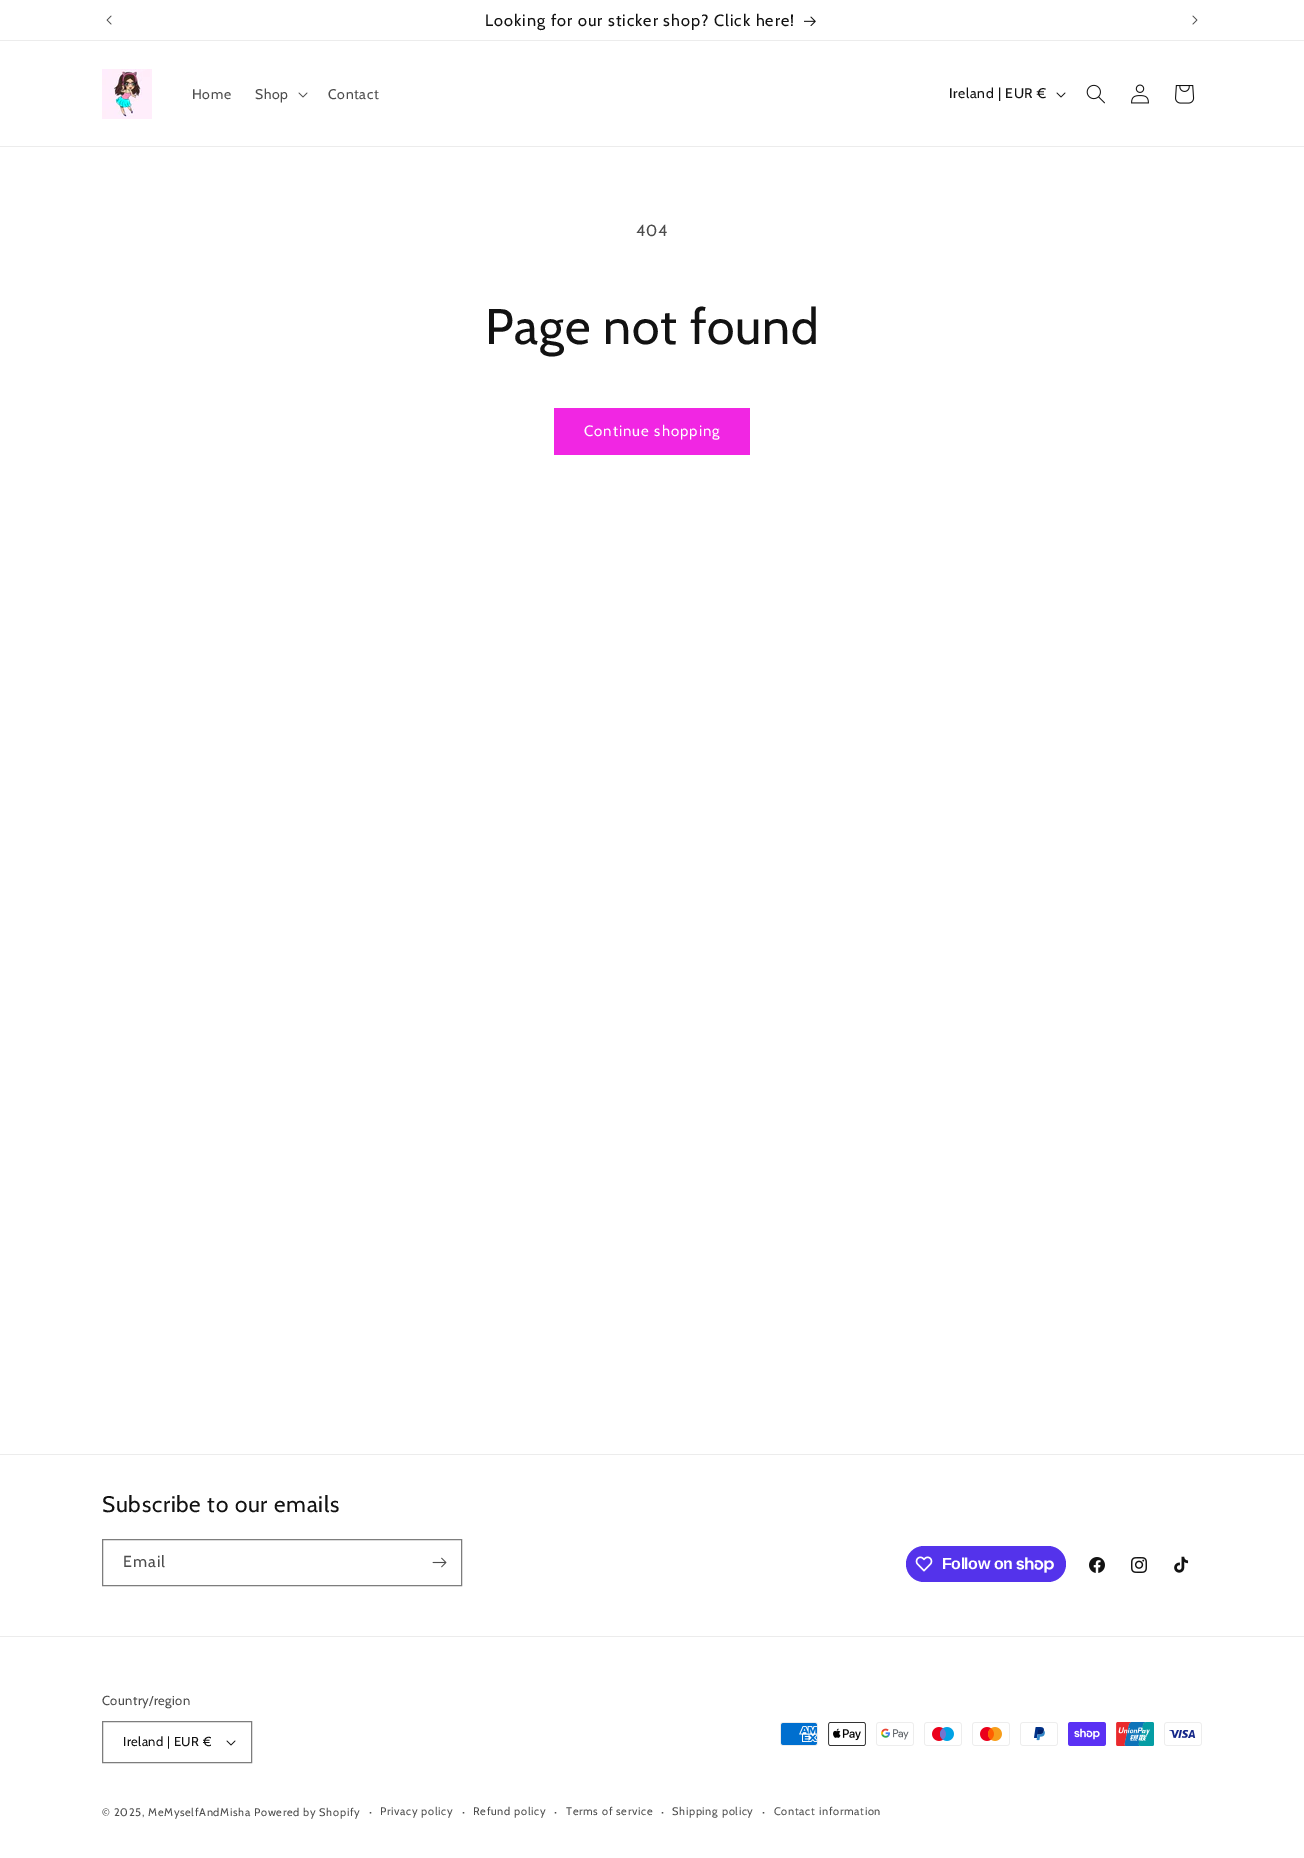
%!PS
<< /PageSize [1304 1858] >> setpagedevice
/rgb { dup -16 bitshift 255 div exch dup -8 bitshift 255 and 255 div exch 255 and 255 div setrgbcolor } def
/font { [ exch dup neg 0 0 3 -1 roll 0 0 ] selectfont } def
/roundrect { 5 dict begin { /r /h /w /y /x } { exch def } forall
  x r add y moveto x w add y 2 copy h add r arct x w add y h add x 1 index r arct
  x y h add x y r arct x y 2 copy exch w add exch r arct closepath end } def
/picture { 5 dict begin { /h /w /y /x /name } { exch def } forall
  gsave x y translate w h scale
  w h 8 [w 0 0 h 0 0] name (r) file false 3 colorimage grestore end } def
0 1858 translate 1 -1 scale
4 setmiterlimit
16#FFFFFF rgb
0 0 1304 1858 rectfill
16#ECECEC rgb
0 40 1304 1 rectfill
(pic1.raw) 106 15 6 10 picture
/Cabin-Regular 16.25 font
16#121212 rgb
485 26 moveto 1 0 (Looking for our sticker shop? Click here!) ashow
(pic2.raw) 804 16 12 10 picture
(pic3.raw) 1192 15 6 10 picture
16#ECECEC rgb
0 146 1304 1 rectfill
(pic4.raw) 102 69 50 50 picture
/Cabin-Regular 14 font
16#4D4D4D rgb
192 99 moveto 0.6 0 (Home) ashow
255 99 moveto 0.6 0 (Shop) ashow
(pic5.raw) 298 92 10 6 picture
328 99 moveto 0.6 0 (Contact) ashow
16#121212 rgb
949 98 moveto 0.6 0 (Ireland | EUR €) ashow
(pic6.raw) 1056 92 10 6 picture
(pic7.raw) 1086 84 19 20 picture
(pic8.raw) 1131 84 18 20 picture
(pic9.raw) 1175 85 20 19 picture
/Cabin-Regular 16 font
16#4D4D4D rgb
636 236 moveto 0.6 0 (404) ashow
/Cabin-Regular 50 font
16#121212 rgb
485 344 moveto 0.75 0 (Page not found) ashow
16#F126E3 rgb
554 408 196 47 rectfill
/Cabin-Regular 15 font
16#FFFFFF rgb
584 436 moveto 1 0 (Continue shopping) ashow
16#ECECEC rgb
0 1454 1304 1 rectfill
/Cabin-Regular 22.5 font
16#121212 rgb
102 1512 moveto 0.75 0 (Subscribe to our emails) ashow
16#7D7D7D rgb
102.5 1539.5 359 46 rectstroke
/Cabin-Regular 16 font
16#4D4D4D rgb
123 1567 moveto 1 0 (Email) ashow
(pic10.raw) 432 1557 15 11 picture
16#5433EB rgb
906 1546 160 36 18 roundrect fill
(pic11.raw) 915 1556 18 16 picture
/LiberationSans-Bold 16 font
16#FFFFFF rgb
942 1569 moveto -0.5 0 (Follow on) ashow
(pic12.raw) 1016 1557 38 16 picture
(pic13.raw) 1089 1557 16 16 picture
(pic14.raw) 1131 1557 16 16 picture
(pic15.raw) 1174 1556 15 17 picture
16#ECECEC rgb
0 1636 1304 1 rectfill
/Cabin-Regular 13 font
16#4D4D4D rgb
102 1705 moveto 0.4 0 (Country/region) ashow
(pic6.raw) 226 1740 10 6 picture
16#7D7D7D rgb
102.5 1721.5 149 41 rectstroke
16#121212 rgb
123 1746 moveto 0.4 0 (Ireland | EUR €) ashow
(pic16.raw) 780 1722 38 24 picture
(pic17.raw) 828 1722 38 24 picture
(pic18.raw) 876 1722 38 24 picture
(pic19.raw) 924 1722 38 24 picture
(pic20.raw) 972 1722 38 24 picture
(pic21.raw) 1020 1722 38 24 picture
(pic22.raw) 1068 1722 38 24 picture
(pic23.raw) 1116 1722 38 24 picture
(pic24.raw) 1164 1722 38 24 picture
/Cabin-Regular 11 font
16#4D4D4D rgb
102 1816 moveto 0.7 0 (© 2025, MeMyselfAndMisha Powered by Shopify) ashow
/Cabin-Regular 12 font
369 1816 moveto 0.7 0 (·) ashow
/Cabin-Regular 11 font
380 1815 moveto 0.7 0 (Privacy policy) ashow
/Cabin-Regular 12 font
462 1816 moveto 0.7 0 (·) ashow
/Cabin-Regular 11 font
473 1815 moveto 0.7 0 (Refund policy) ashow
/Cabin-Regular 12 font
554 1816 moveto 0.7 0 (·) ashow
/Cabin-Regular 11 font
566 1815 moveto 0.7 0 (Terms of service) ashow
/Cabin-Regular 12 font
661 1816 moveto 0.7 0 (·) ashow
/Cabin-Regular 11 font
672 1815 moveto 0.7 0 (Shipping policy) ashow
/Cabin-Regular 12 font
762 1816 moveto 0.7 0 (·) ashow
/Cabin-Regular 11 font
774 1815 moveto 0.7 0 (Contact information) ashow
showpage
